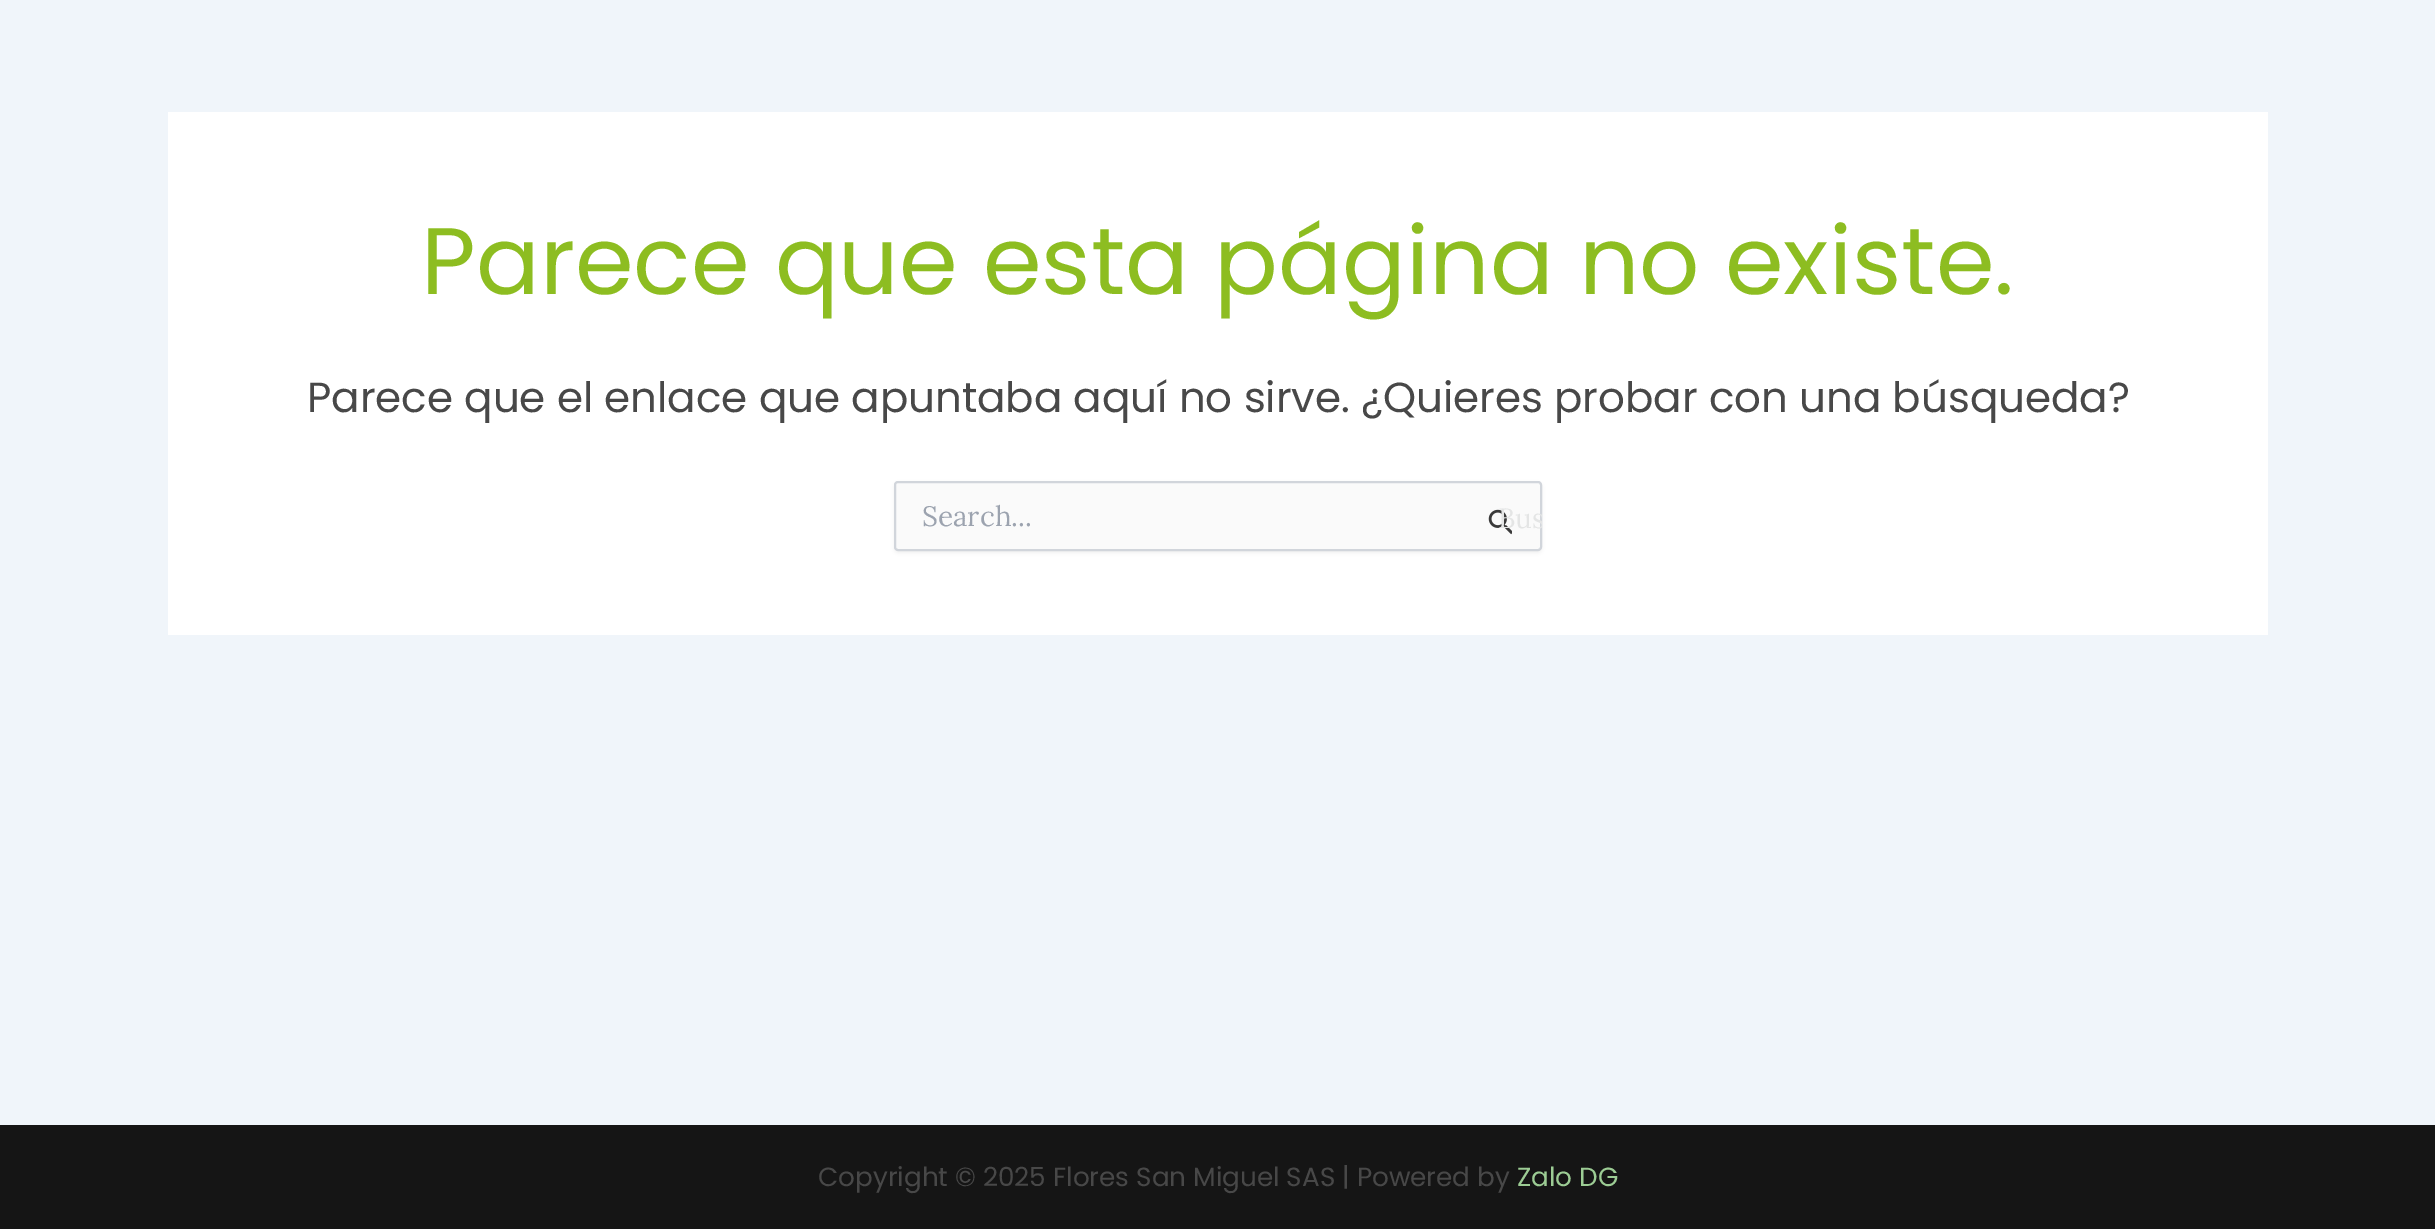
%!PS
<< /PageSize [2435 1229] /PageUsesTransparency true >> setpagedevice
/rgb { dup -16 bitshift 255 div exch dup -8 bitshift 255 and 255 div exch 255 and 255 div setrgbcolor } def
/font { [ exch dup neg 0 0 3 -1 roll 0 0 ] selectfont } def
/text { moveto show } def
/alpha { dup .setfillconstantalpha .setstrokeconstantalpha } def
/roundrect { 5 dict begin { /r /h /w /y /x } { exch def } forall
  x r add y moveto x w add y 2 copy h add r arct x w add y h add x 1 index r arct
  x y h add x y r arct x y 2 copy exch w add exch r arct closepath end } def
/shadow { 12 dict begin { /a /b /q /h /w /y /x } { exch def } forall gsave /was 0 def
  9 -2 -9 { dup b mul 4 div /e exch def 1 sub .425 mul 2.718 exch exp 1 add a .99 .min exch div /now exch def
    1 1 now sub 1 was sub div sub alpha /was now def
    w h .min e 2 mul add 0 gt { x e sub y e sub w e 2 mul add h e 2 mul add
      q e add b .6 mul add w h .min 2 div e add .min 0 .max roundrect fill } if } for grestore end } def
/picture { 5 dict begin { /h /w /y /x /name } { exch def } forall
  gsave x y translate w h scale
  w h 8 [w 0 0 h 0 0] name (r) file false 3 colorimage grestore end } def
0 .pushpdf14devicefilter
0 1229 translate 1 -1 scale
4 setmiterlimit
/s1 { /Poppins-Regular 94.5 font 16#8DBD21 rgb } def
/s2 { /Poppins-Regular 42 font 16#484848 rgb } def
/s3 { /Lora-Regular 28 font 16#9CA3AF rgb } def
/s4 { /Lora-Regular 28 font 16#E4E5E5 rgb } def
/s5 { /Poppins-Regular 26.25 font 16#484848 rgb } def
/s6 { /Poppins-Regular 26.25 font 16#9CCC94 rgb } def
16#F0F5FA rgb
0 0 2435 1229 rectfill
16#FFFFFF rgb
168 112 2100 523 rectfill
s1
(Parece que esta página no existe.) 421 294 text
s2
(Parece que el enlace que apuntaba aquí no sirve. ¿Quieres probar con una búsqueda?) 307 412 text
16#000000 rgb
894 483 648 70 4 2 0.05 shadow
16#FAFAFA rgb
895 482 646 68 3 roundrect gsave fill grestore
16#D1D5DB rgb
2 setlinewidth
stroke
s3
(Search...) 922 526 text
(pic1.raw) 1488 509 24 26 picture
gsave
1463 481 79 74 4 roundrect clip newpath
s4
(Bus) 1498 528 text
grestore
16#151515 rgb
0 1125 2435 104 rectfill
s5
(Copyright © 2025 Flores San Miguel SAS | Powered by) 818 1186 text
s6
(Zalo DG) 1517 1186 text
.poppdf14devicefilter showpage
